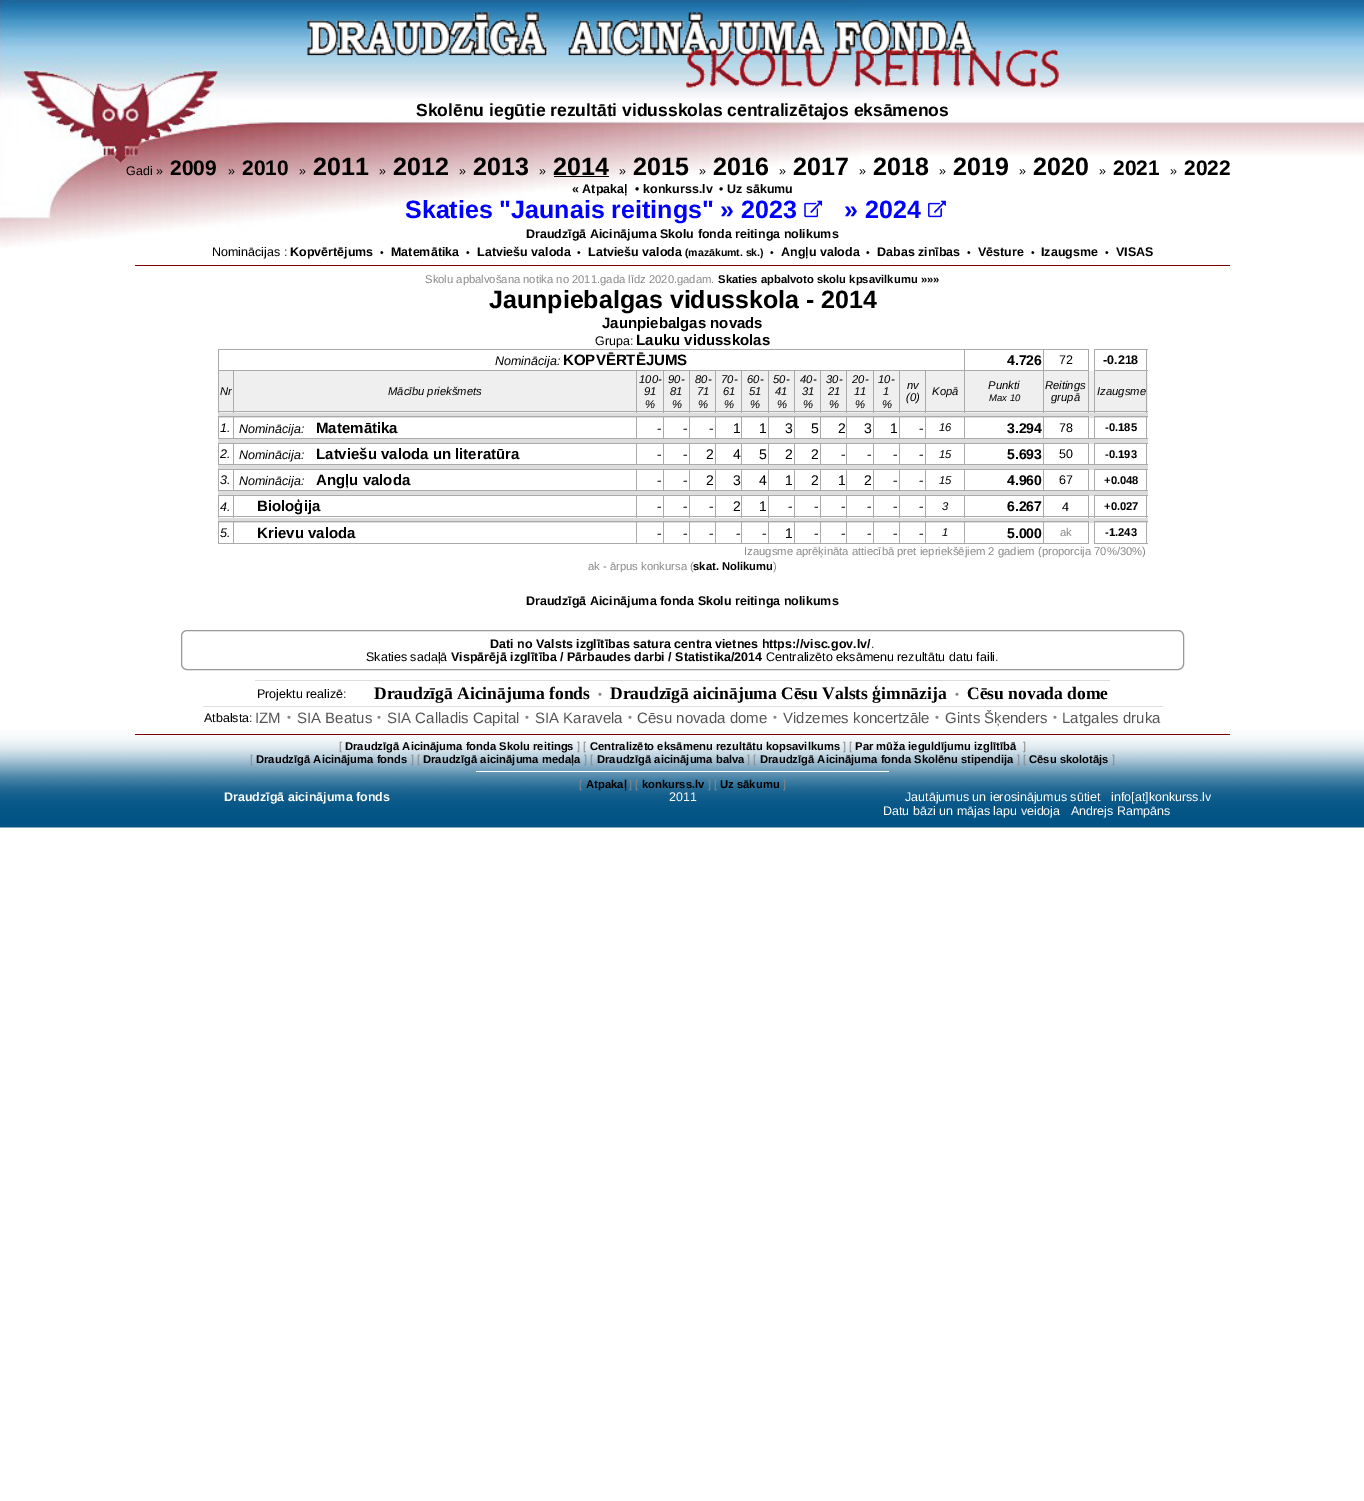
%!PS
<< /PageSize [1364 1501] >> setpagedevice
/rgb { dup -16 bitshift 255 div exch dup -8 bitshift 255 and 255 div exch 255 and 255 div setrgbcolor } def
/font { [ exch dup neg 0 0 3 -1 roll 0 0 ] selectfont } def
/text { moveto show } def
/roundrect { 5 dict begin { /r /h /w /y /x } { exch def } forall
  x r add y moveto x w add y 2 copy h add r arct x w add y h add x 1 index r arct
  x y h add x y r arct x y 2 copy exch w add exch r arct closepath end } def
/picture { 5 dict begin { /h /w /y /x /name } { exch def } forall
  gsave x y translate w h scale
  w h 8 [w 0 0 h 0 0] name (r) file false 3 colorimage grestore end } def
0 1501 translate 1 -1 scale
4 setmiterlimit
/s1 { /LiberationSans-Bold 17.5 font 16#000000 rgb } def
/s2 { /LiberationSans-Regular 12.5 font 16#000000 rgb } def
/s3 { /LiberationSans-Bold 21 font 16#000000 rgb } def
/s4 { /LiberationSans-Bold 25 font 16#000000 rgb } def
/s5 { /LiberationSans-Bold 12.5 font 16#000000 rgb } def
/s6 { /LiberationSans-Bold 25 font 16#0000FF rgb } def
/s7 { /LiberationSans-Regular 10.5 font 16#000000 rgb } def
/s8 { /LiberationSans-Bold 10.5 font 16#000000 rgb } def
/s9 { /LiberationSans-Regular 11.25 font 16#888888 rgb } def
/s10 { /LiberationSans-Bold 11.25 font 16#000000 rgb } def
/s11 { /LiberationSans-Bold 15 font 16#000000 rgb } def
/s12 { /LiberationSans-Italic 12.5 font 16#000000 rgb } def
/s13 { /LiberationSans-Bold 14 font 16#000000 rgb } def
/s14 { /LiberationSans-Italic 11.25 font 16#000000 rgb } def
/s15 { /LiberationSans-Italic 9.5 font 16#000000 rgb } def
/s16 { /LiberationSans-Regular 14 font 16#000000 rgb } def
/s17 { /LiberationSerif-Bold 17.5 font 16#000000 rgb } def
/s18 { /LiberationSans-Regular 15 font 16#555555 rgb } def
/s19 { /LiberationSans-Bold 12.5 font 16#FFFFFF rgb } def
/s20 { /LiberationSans-Regular 12.5 font 16#FFFFFF rgb } def
16#FFFFFF rgb
0 0 1364 1501 rectfill
(pic1.raw) 862 0 502 156 picture
(pic2.raw) 0 0 862 248 picture
(pic3.raw) 307 12 752 76 picture
s1
(Skolēnu iegūtie rezultāti vidusskolas centralizētajos eksāmenos) 416 116 text
s2
(Gadi ») 126 175 text
s3
(2009) 170 175 text
s2
(») 228 175 text
s3
(2010) 242 175 text
s2
(») 299 175 text
s4
(2011) 313 175 text
s2
(») 379 175 text
s4
(2012) 393 175 text
s2
(») 459 175 text
s4
(2013) 473 175 text
s2
(») 539 175 text
s4
(2014) 553 175 text
554 176 55 1 rectfill
s2
(») 619 175 text
s4
(2015) 633 175 text
s2
(») 699 175 text
s4
(2016) 713 175 text
s2
(») 779 175 text
s4
(2017) 793 175 text
s2
(») 859 175 text
s4
(2018) 873 175 text
s2
(») 939 175 text
s4
(2019) 953 175 text
s2
(») 1019 175 text
s4
(2020) 1033 175 text
s2
(») 1099 175 text
s3
(2021) 1113 175 text
s2
(») 1170 175 text
s3
(2022) 1184 175 text
s5
(« Atpakaļ) 572 193 text
s2
(•) 635 193 text
s5
(konkurss.lv) 643 193 text
s2
(•) 719 193 text
s5
(Uz sākumu) 727 193 text
s6
(Skaties "Jaunais reitings" » 2023) 405 218 text
(pic4.raw) 804 200 19 18 picture
(» 2024) 844 218 text
(pic5.raw) 928 200 19 18 picture
s5
(Draudzīgā Aicinājuma Skolu fonda reitinga nolikums) 526 238 text
s2
(Nominācijas :) 212 256 text
s5
(Kopvērtējums) 290 256 text
s7
(•) 380 256 text
s5
(Matemātika) 391 256 text
s7
(•) 466 256 text
s5
(Latviešu valoda) 477 256 text
s7
(•) 577 256 text
s5
(Latviešu valoda) 588 256 text
s8
(\(mazākumt. sk.\)) 685 256 text
s7
(•) 770 256 text
s5
(Angļu valoda) 781 256 text
s7
(•) 866 256 text
s5
(Dabas zinības) 877 256 text
s7
(•) 967 256 text
s5
(Vēsture) 978 256 text
s7
(•) 1031 256 text
s5
(Izaugsme) 1041 256 text
s7
(•) 1105 256 text
s5
(VISAS) 1116 256 text
16#800000 rgb
135 265 1095 1 rectfill
s9
(Skolu apbalvošana notika no 2011.gada līdz 2020.gadam.) 425 283 text
s10
(Skaties apbalvoto skolu kpsavilkumu »»») 718 283 text
s4
(Jaunpiebalgas vidusskola - 2014) 489 308 text
s11
(Jaunpiebalgas novads) 602 328 text
s2
(Grupa:) 595 345 text
s11
(Lauku vidusskolas) 636 345 text
16#AAAAAA rgb
1043 349 46 1 rectfill
1043 370 46 1 rectfill
16#EFEFEF rgb
219 371 929 42 rectfill
16#AAAAAA rgb
218 411 930 1 rectfill
1043 370 1 43 rectfill
964 370 80 1 rectfill
1043 349 1 22 rectfill
964 349 80 1 rectfill
964 370 1 43 rectfill
925 370 40 1 rectfill
964 349 1 22 rectfill
218 349 747 1 rectfill
925 370 1 43 rectfill
899 370 27 1 rectfill
899 370 1 43 rectfill
873 370 27 1 rectfill
873 370 1 43 rectfill
846 370 28 1 rectfill
846 370 1 43 rectfill
820 370 28 1 rectfill
820 370 1 43 rectfill
794 370 27 1 rectfill
794 370 1 43 rectfill
768 370 27 1 rectfill
768 370 1 43 rectfill
741 370 28 1 rectfill
741 370 1 43 rectfill
715 370 28 1 rectfill
715 370 1 43 rectfill
689 370 27 1 rectfill
689 370 1 43 rectfill
663 370 27 1 rectfill
663 370 1 43 rectfill
636 370 28 1 rectfill
636 370 1 43 rectfill
233 370 405 1 rectfill
233 370 1 43 rectfill
218 370 16 1 rectfill
218 370 1 43 rectfill
218 349 1 22 rectfill
s12
(Nominācija:) 495 365 text
s11
(KOPVĒRTĒJUMS) 563 365 text
s13
(4.726) 1007 365 text
16#AAAAAA rgb
1088 370 1 43 rectfill
1088 349 1 22 rectfill
s2
(72) 1059 364 text
16#AAAAAA rgb
1094 349 54 1 rectfill
1094 370 54 1 rectfill
1146 370 1 43 rectfill
1146 349 1 22 rectfill
1094 370 1 43 rectfill
1094 349 1 22 rectfill
s5
(-0.218) 1103 364 text
s14
(Nr) 220 395 text
(Mācību priekšmets) 388 395 text
(100-) 639 383 text
(91) 644 395 text
(%) 645 408 text
(90-) 668 383 text
(81) 670 395 text
(%) 672 408 text
(80-) 695 383 text
(71) 697 395 text
(%) 698 408 text
(70-) 721 383 text
(61) 723 395 text
(%) 724 408 text
(60-) 747 383 text
(51) 749 395 text
(%) 750 408 text
(50-) 773 383 text
(41) 775 395 text
(%) 777 408 text
(40-) 800 383 text
(31) 802 395 text
(%) 803 408 text
(30-) 826 383 text
(21) 828 395 text
(%) 829 408 text
(20-) 852 383 text
(11) 854 395 text
(%) 855 408 text
(10-) 878 383 text
(1) 883 395 text
(%) 882 408 text
(nv) 907 389 text
(\(0\)) 906 401 text
(Kopā) 932 395 text
(Punkti) 988 389 text
s15
(Max 10) 989 401 text
s14
(Reitings) 1045 389 text
(grupā) 1051 401 text
(Izaugsme) 1097 395 text
16#DDDDDD rgb
218 413 930 5 rectfill
16#AAAAAA rgb
1043 416 46 1 rectfill
218 438 930 1 rectfill
1043 416 1 23 rectfill
964 416 80 1 rectfill
964 416 1 23 rectfill
925 416 40 1 rectfill
925 416 1 23 rectfill
899 416 27 1 rectfill
899 416 1 23 rectfill
873 416 27 1 rectfill
873 416 1 23 rectfill
846 416 28 1 rectfill
846 416 1 23 rectfill
820 416 28 1 rectfill
820 416 1 23 rectfill
794 416 27 1 rectfill
794 416 1 23 rectfill
768 416 27 1 rectfill
768 416 1 23 rectfill
741 416 28 1 rectfill
741 416 1 23 rectfill
715 416 28 1 rectfill
715 416 1 23 rectfill
689 416 27 1 rectfill
689 416 1 23 rectfill
663 416 27 1 rectfill
663 416 1 23 rectfill
636 416 28 1 rectfill
636 416 1 23 rectfill
233 416 405 1 rectfill
233 416 1 23 rectfill
218 416 16 1 rectfill
218 416 1 23 rectfill
s12
(1.) 220 432 text
(Nominācija:) 239 433 text
s11
(Matemātika) 316 433 text
s16
(-) 657 433 text
(-) 683 433 text
(-) 709 433 text
(1) 733 433 text
(1) 759 433 text
(3) 785 433 text
(5) 811 433 text
(2) 838 433 text
(3) 864 433 text
(1) 890 433 text
(-) 919 433 text
s14
(16) 939 431 text
s13
(3.294) 1007 433 text
16#AAAAAA rgb
1088 416 1 23 rectfill
s2
(78) 1059 432 text
16#AAAAAA rgb
1094 416 54 1 rectfill
1146 416 1 23 rectfill
1094 416 1 23 rectfill
s10
(-0.185) 1105 431 text
16#DDDDDD rgb
218 439 930 5 rectfill
16#AAAAAA rgb
1043 443 46 1 rectfill
218 464 930 1 rectfill
1043 443 1 22 rectfill
964 443 80 1 rectfill
964 443 1 22 rectfill
925 443 40 1 rectfill
925 443 1 22 rectfill
899 443 27 1 rectfill
899 443 1 22 rectfill
873 443 27 1 rectfill
873 443 1 22 rectfill
846 443 28 1 rectfill
846 443 1 22 rectfill
820 443 28 1 rectfill
820 443 1 22 rectfill
794 443 27 1 rectfill
794 443 1 22 rectfill
768 443 27 1 rectfill
768 443 1 22 rectfill
741 443 28 1 rectfill
741 443 1 22 rectfill
715 443 28 1 rectfill
715 443 1 22 rectfill
689 443 27 1 rectfill
689 443 1 22 rectfill
663 443 27 1 rectfill
663 443 1 22 rectfill
636 443 28 1 rectfill
636 443 1 22 rectfill
233 443 405 1 rectfill
233 443 1 22 rectfill
218 443 16 1 rectfill
218 443 1 22 rectfill
s12
(2.) 220 458 text
(Nominācija:) 239 459 text
s11
(Latviešu valoda un literatūra) 316 459 text
s16
(-) 657 459 text
(-) 683 459 text
(2) 706 459 text
(4) 733 459 text
(5) 759 459 text
(2) 785 459 text
(2) 811 459 text
(-) 841 459 text
(-) 867 459 text
(-) 893 459 text
(-) 919 459 text
s14
(15) 939 458 text
s13
(5.693) 1007 459 text
16#AAAAAA rgb
1088 443 1 22 rectfill
s2
(50) 1059 458 text
16#AAAAAA rgb
1094 443 54 1 rectfill
1146 443 1 22 rectfill
1094 443 1 22 rectfill
s10
(-0.193) 1105 458 text
16#DDDDDD rgb
218 465 930 5 rectfill
16#AAAAAA rgb
1043 469 46 1 rectfill
218 490 930 1 rectfill
1043 469 1 22 rectfill
964 469 80 1 rectfill
964 469 1 22 rectfill
925 469 40 1 rectfill
925 469 1 22 rectfill
899 469 27 1 rectfill
899 469 1 22 rectfill
873 469 27 1 rectfill
873 469 1 22 rectfill
846 469 28 1 rectfill
846 469 1 22 rectfill
820 469 28 1 rectfill
820 469 1 22 rectfill
794 469 27 1 rectfill
794 469 1 22 rectfill
768 469 27 1 rectfill
768 469 1 22 rectfill
741 469 28 1 rectfill
741 469 1 22 rectfill
715 469 28 1 rectfill
715 469 1 22 rectfill
689 469 27 1 rectfill
689 469 1 22 rectfill
663 469 27 1 rectfill
663 469 1 22 rectfill
636 469 28 1 rectfill
636 469 1 22 rectfill
233 469 405 1 rectfill
233 469 1 22 rectfill
218 469 16 1 rectfill
218 469 1 22 rectfill
s12
(3.) 220 484 text
(Nominācija:) 239 485 text
s11
(Angļu valoda) 316 485 text
s16
(-) 657 485 text
(-) 683 485 text
(2) 706 485 text
(3) 733 485 text
(4) 759 485 text
(1) 785 485 text
(2) 811 485 text
(1) 838 485 text
(2) 864 485 text
(-) 893 485 text
(-) 919 485 text
s14
(15) 939 484 text
s13
(4.960) 1007 485 text
16#AAAAAA rgb
1088 469 1 22 rectfill
s2
(67) 1059 484 text
16#AAAAAA rgb
1094 469 54 1 rectfill
1146 469 1 22 rectfill
1094 469 1 22 rectfill
s10
(+0.048) 1104 484 text
16#DDDDDD rgb
218 491 930 5 rectfill
16#AAAAAA rgb
1043 495 46 1 rectfill
218 516 930 1 rectfill
1043 495 1 23 rectfill
964 495 80 1 rectfill
964 495 1 23 rectfill
925 495 40 1 rectfill
925 495 1 23 rectfill
899 495 27 1 rectfill
899 495 1 23 rectfill
873 495 27 1 rectfill
873 495 1 23 rectfill
846 495 28 1 rectfill
846 495 1 23 rectfill
820 495 28 1 rectfill
820 495 1 23 rectfill
794 495 27 1 rectfill
794 495 1 23 rectfill
768 495 27 1 rectfill
768 495 1 23 rectfill
741 495 28 1 rectfill
741 495 1 23 rectfill
715 495 28 1 rectfill
715 495 1 23 rectfill
689 495 27 1 rectfill
689 495 1 23 rectfill
663 495 27 1 rectfill
663 495 1 23 rectfill
636 495 28 1 rectfill
636 495 1 23 rectfill
233 495 405 1 rectfill
233 495 1 23 rectfill
218 495 16 1 rectfill
218 495 1 23 rectfill
s12
(4.) 220 511 text
s11
(Bioloģija) 257 511 text
s16
(-) 657 511 text
(-) 683 511 text
(-) 709 511 text
(2) 733 511 text
(1) 759 511 text
(-) 788 511 text
(-) 814 511 text
(-) 841 511 text
(-) 867 511 text
(-) 893 511 text
(-) 919 511 text
s14
(3) 942 510 text
s13
(6.267) 1007 511 text
16#AAAAAA rgb
1088 495 1 23 rectfill
s2
(4) 1062 511 text
16#AAAAAA rgb
1094 495 54 1 rectfill
1146 495 1 23 rectfill
1094 495 1 23 rectfill
s10
(+0.027) 1104 510 text
16#DDDDDD rgb
218 518 930 5 rectfill
16#AAAAAA rgb
1043 521 46 1 rectfill
1088 521 1 23 rectfill
1043 543 46 1 rectfill
1043 521 1 23 rectfill
964 521 80 1 rectfill
964 543 80 1 rectfill
964 521 1 23 rectfill
925 521 40 1 rectfill
925 543 40 1 rectfill
925 521 1 23 rectfill
899 521 27 1 rectfill
899 543 27 1 rectfill
899 521 1 23 rectfill
873 521 27 1 rectfill
873 543 27 1 rectfill
873 521 1 23 rectfill
846 521 28 1 rectfill
846 543 28 1 rectfill
846 521 1 23 rectfill
820 521 28 1 rectfill
820 543 28 1 rectfill
820 521 1 23 rectfill
794 521 27 1 rectfill
794 543 27 1 rectfill
794 521 1 23 rectfill
768 521 27 1 rectfill
768 543 27 1 rectfill
768 521 1 23 rectfill
741 521 28 1 rectfill
741 543 28 1 rectfill
741 521 1 23 rectfill
715 521 28 1 rectfill
715 543 28 1 rectfill
715 521 1 23 rectfill
689 521 27 1 rectfill
689 543 27 1 rectfill
689 521 1 23 rectfill
663 521 27 1 rectfill
663 543 27 1 rectfill
663 521 1 23 rectfill
636 521 28 1 rectfill
636 543 28 1 rectfill
636 521 1 23 rectfill
233 521 405 1 rectfill
233 543 405 1 rectfill
233 521 1 23 rectfill
218 521 16 1 rectfill
218 543 16 1 rectfill
218 521 1 23 rectfill
s12
(5.) 220 537 text
s11
(Krievu valoda) 257 538 text
s16
(-) 657 538 text
(-) 683 538 text
(-) 709 538 text
(-) 736 538 text
(-) 762 538 text
(1) 785 538 text
(-) 814 538 text
(-) 841 538 text
(-) 867 538 text
(-) 893 538 text
(-) 919 538 text
s14
(1) 942 536 text
s13
(5.000) 1007 538 text
s9
(ak) 1060 536 text
16#AAAAAA rgb
1094 521 54 1 rectfill
1146 521 1 23 rectfill
1094 543 54 1 rectfill
1094 521 1 23 rectfill
s10
(-1.243) 1105 536 text
s9
(Izaugsme aprēķināta attiecībā pret iepriekšējiem 2 gadiem \(proporcija 70%/30%\)) 744 555 text
(ak - ārpus konkursa \() 588 570 text
s10
(skat. Nolikumu) 693 570 text
s9
(\)) 773 570 text
s5
(Draudzīgā Aicinājuma fonda Skolu reitinga nolikums) 526 605 text
16#999999 rgb
181.5 630.5 1002 39 5.5 roundrect stroke
s5
(Dati no Valsts izglītības satura centra vietnes https://visc.gov.lv/) 490 648 text
s2
(.) 871 648 text
(Skaties sadaļā) 366 661 text
s5
(Vispārējā izglītība / Pārbaudes darbi / Statistika/2014) 451 661 text
s2
(Centralizēto eksāmenu rezultātu datu faili.) 766 661 text
16#DDDDDD rgb
255 680 855 1 rectfill
s2
(Projektu realizē:) 257 698 text
s17
(Draudzīgā Aicinājuma fonds) 374 699 text
s9
(•) 598 698 text
s17
(Draudzīgā aicinājuma Cēsu Valsts ģimnāzija) 610 699 text
s9
(•) 955 698 text
s17
(Cēsu novada dome) 967 699 text
16#DDDDDD rgb
203 706 960 1 rectfill
s2
(Atbalsta:) 204 722 text
s18
(IZM) 255 723 text
s9
(•) 287 721 text
s18
(SIA Beatus) 297 723 text
s9
(•) 377 721 text
s18
(SIA Calladis Capital) 387 723 text
s9
(•) 525 721 text
s18
(SIA Karavela) 535 723 text
s9
(•) 628 721 text
s18
(Cēsu novada dome) 637 723 text
s9
(•) 773 721 text
s18
(Vidzemes koncertzāle) 783 723 text
s9
(•) 935 721 text
s18
(Gints Šķenders) 945 723 text
s9
(•) 1053 721 text
s18
(Latgales druka) 1062 723 text
(pic6.raw) 0 730 1364 98 picture
16#800000 rgb
135 734 1095 1 rectfill
s9
([) 339 750 text
s10
(Draudzīgā Aicinājuma fonda Skolu reitings) 345 750 text
s9
(] [) 577 750 text
s10
(Centralizēto eksāmenu rezultātu kopsavilkums) 590 750 text
s9
(] [) 843 750 text
s10
(Par mūža ieguldījumu izglītībā) 855 750 text
s9
(]) 1023 750 text
([) 250 763 text
s10
(Draudzīgā Aicinājuma fonds) 256 763 text
s9
(] [) 411 763 text
s10
(Draudzīgā aicinājuma medaļa) 423 763 text
s9
(] [) 584 763 text
s10
(Draudzīgā aicinājuma balva) 597 763 text
s9
(] [) 747 763 text
s10
(Draudzīgā Aicinājuma fonda Skolēnu stipendija) 760 763 text
s9
(] [) 1017 763 text
s10
(Cēsu skolotājs) 1029 763 text
s9
(]) 1112 763 text
16#FFFFFF rgb
476 771 413 1 rectfill
s9
([) 579 788 text
s10
(Atpakaļ) 586 788 text
s9
(] [) 629 788 text
s10
(konkurss.lv) 642 788 text
s9
(] [) 708 788 text
s10
(Uz sākumu) 720 788 text
s9
(]) 783 788 text
s19
(Draudzīgā aicinājuma fonds) 224 801 text
s20
(2011) 669 801 text
(Jautājumus un ierosinājumus sūtiet) 905 801 text
(info[at]konkurss.lv) 1111 801 text
(Datu bāzi un mājas lapu veidoja) 883 815 text
(Andrejs Rampāns) 1071 815 text
showpage
